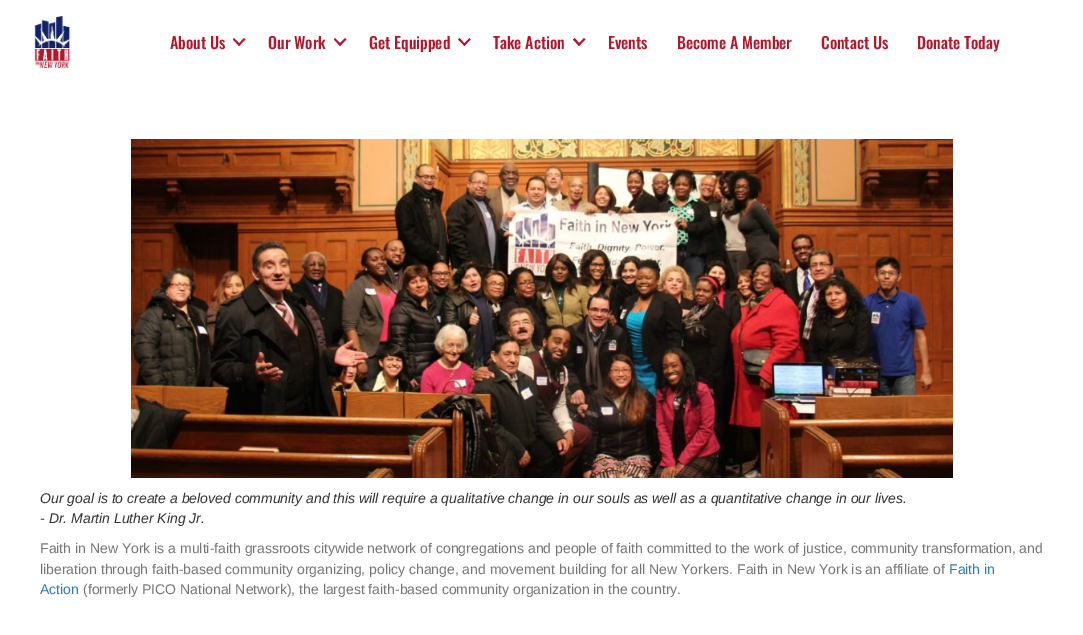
%!PS
<< /PageSize [1083 635] >> setpagedevice
/rgb { dup -16 bitshift 255 div exch dup -8 bitshift 255 and 255 div exch 255 and 255 div setrgbcolor } def
/font { [ exch dup neg 0 0 3 -1 roll 0 0 ] selectfont } def
/text { moveto show } def
/picture { 5 dict begin { /h /w /y /x /name } { exch def } forall
  gsave x y translate w h scale
  w h 8 [w 0 0 h 0 0] name (r) file false 3 colorimage grestore end } def
0 635 translate 1 -1 scale
4 setmiterlimit
/s1 { /Oswald-Medium 16 font 16#B4162B rgb } def
/s2 { /LiberationSans-Italic 14 font 16#333333 rgb } def
/s3 { /LiberationSans-Regular 14 font 16#757575 rgb } def
/s4 { /LiberationSans-Regular 14 font 16#2B7BB9 rgb } def
16#FFFFFF rgb
0 0 1083 635 rectfill
(pic1.raw) 34 16 37 52 picture
s1
(About Us) 170 49 text
244 38 moveto 245.5 39.5 lineto 239 46 lineto 238 44.5 lineto closepath fill
234 38 moveto 240.5 44.5 lineto 239 46 lineto 233 39.5 lineto closepath fill
(Our Work) 268 49 text
345 38 moveto 346.5 39.5 lineto 340 46 lineto 338.5 44.5 lineto closepath fill
335 38 moveto 341.5 44.5 lineto 340 46 lineto 334 39.5 lineto closepath fill
(Get Equipped) 369 49 text
469.5 38 moveto 470.5 39.5 lineto 464.5 46 lineto 463 44.5 lineto closepath fill
459.5 38 moveto 465.5 44.5 lineto 464.5 46 lineto 458 39.5 lineto closepath fill
(Take Action) 493 49 text
584 38 moveto 585.5 39.5 lineto 579 46 lineto 578 44.5 lineto closepath fill
574.5 38 moveto 580.5 44.5 lineto 579 46 lineto 573 39.5 lineto closepath fill
(Events) 608 49 text
(Become A Member) 677 49 text
(Contact Us) 821 49 text
(Donate Today) 917 49 text
(pic2.raw) 131 139 822 339 picture
s2
(Our goal is to create a beloved community and this will require a qualitative change in our souls as well as a quantitative change in our lives.) 40 503 text
(- Dr. Martin Luther King Jr.) 40 523 text
s3
(Faith in New York is a multi-faith grassroots citywide network of congregations and people of faith committed to the work of justice, community transformation, and) 40 553 text
(liberation through faith-based community organizing, policy change, and movement building for all New Yorkers. Faith in New York is an affiliate of) 40 574 text
s4
(Faith in) 949 574 text
(Action) 40 594 text
s3
(\(formerly PICO National Network\), the largest faith-based community organization in the country.) 83 594 text
showpage
